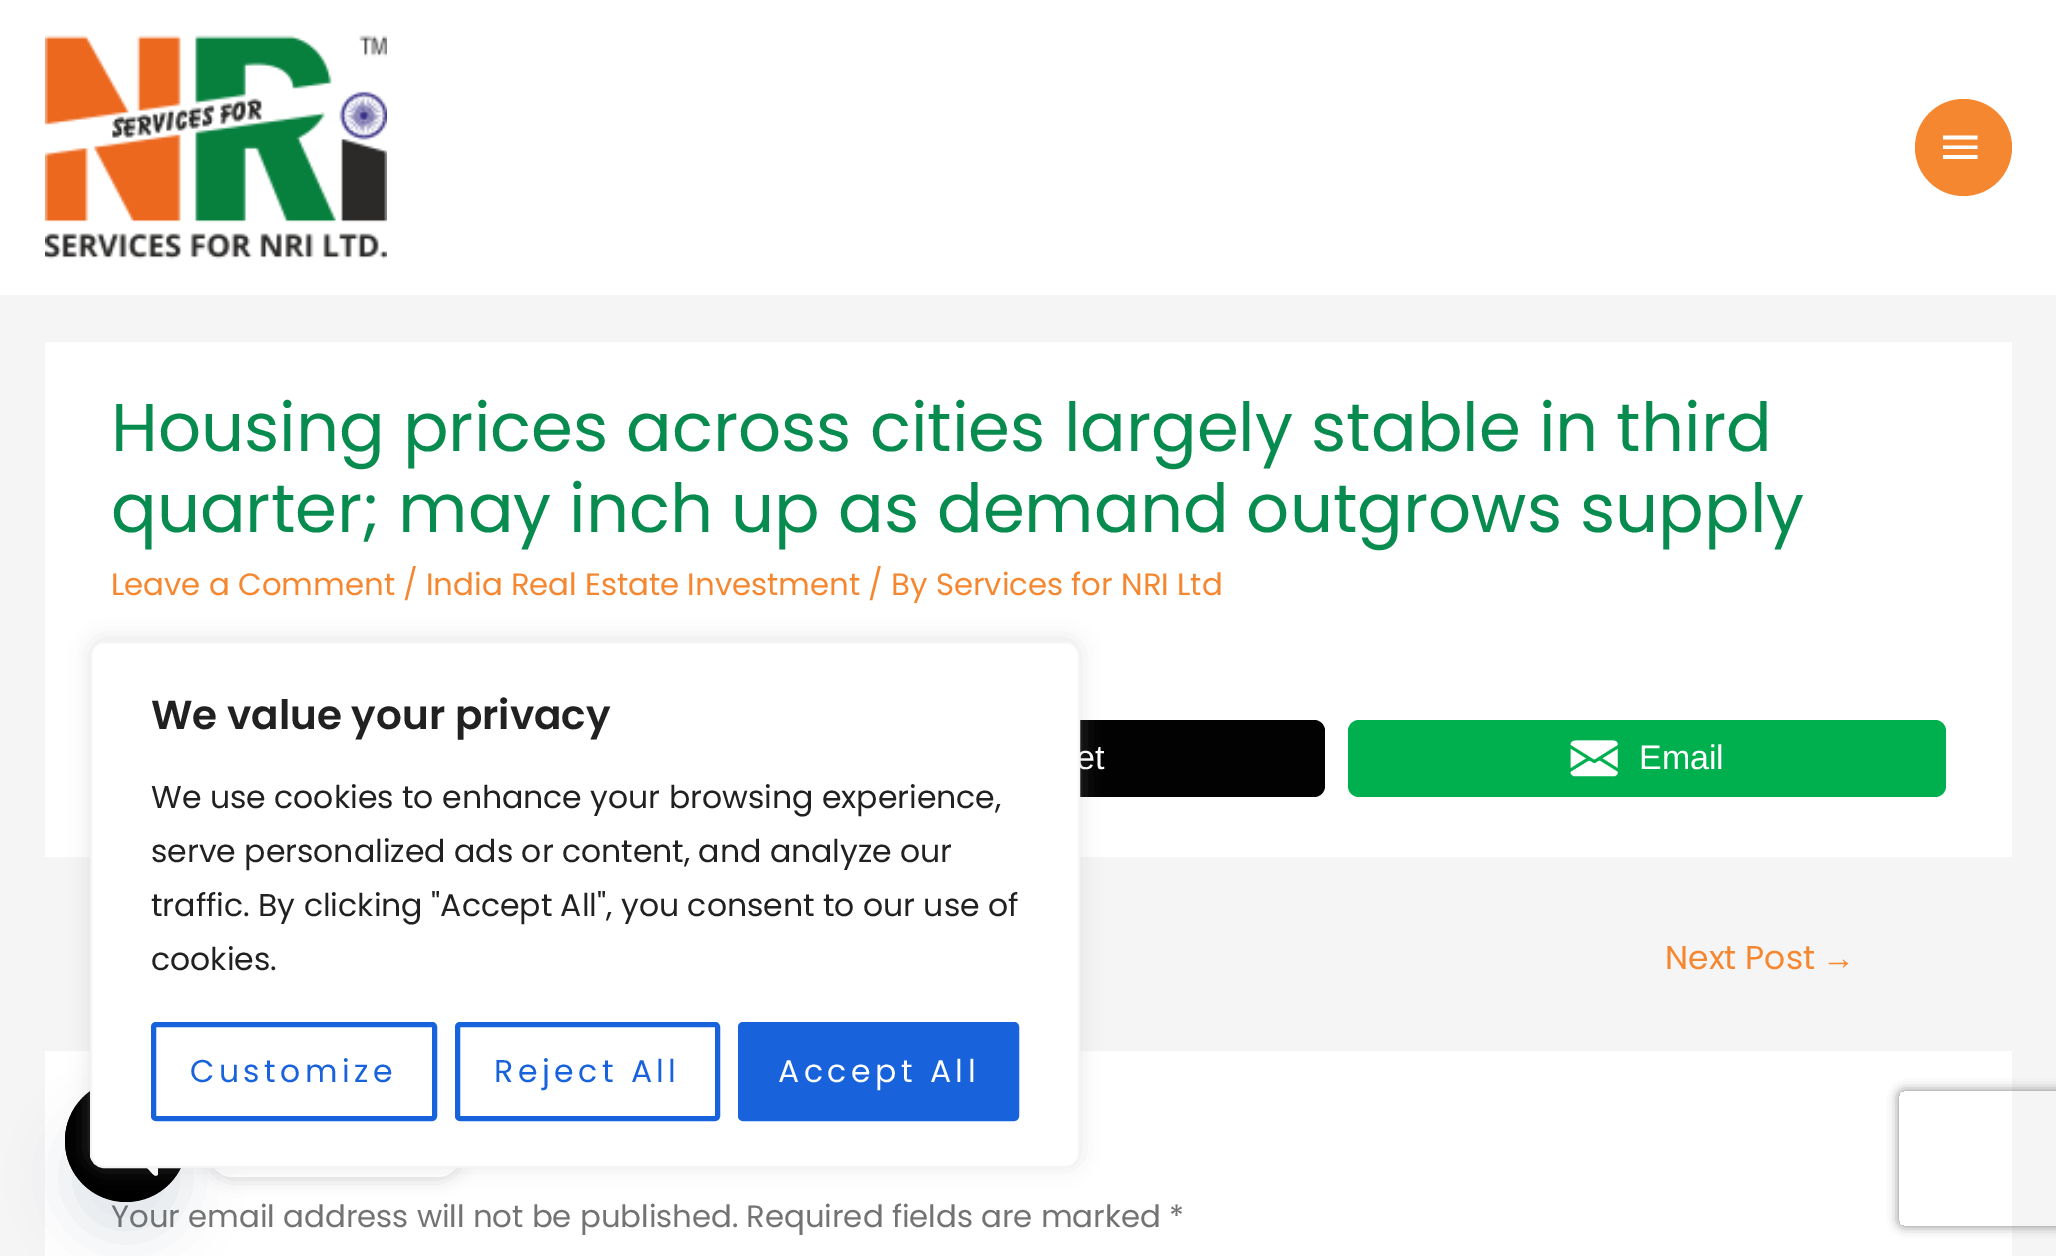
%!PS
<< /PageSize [2056 1256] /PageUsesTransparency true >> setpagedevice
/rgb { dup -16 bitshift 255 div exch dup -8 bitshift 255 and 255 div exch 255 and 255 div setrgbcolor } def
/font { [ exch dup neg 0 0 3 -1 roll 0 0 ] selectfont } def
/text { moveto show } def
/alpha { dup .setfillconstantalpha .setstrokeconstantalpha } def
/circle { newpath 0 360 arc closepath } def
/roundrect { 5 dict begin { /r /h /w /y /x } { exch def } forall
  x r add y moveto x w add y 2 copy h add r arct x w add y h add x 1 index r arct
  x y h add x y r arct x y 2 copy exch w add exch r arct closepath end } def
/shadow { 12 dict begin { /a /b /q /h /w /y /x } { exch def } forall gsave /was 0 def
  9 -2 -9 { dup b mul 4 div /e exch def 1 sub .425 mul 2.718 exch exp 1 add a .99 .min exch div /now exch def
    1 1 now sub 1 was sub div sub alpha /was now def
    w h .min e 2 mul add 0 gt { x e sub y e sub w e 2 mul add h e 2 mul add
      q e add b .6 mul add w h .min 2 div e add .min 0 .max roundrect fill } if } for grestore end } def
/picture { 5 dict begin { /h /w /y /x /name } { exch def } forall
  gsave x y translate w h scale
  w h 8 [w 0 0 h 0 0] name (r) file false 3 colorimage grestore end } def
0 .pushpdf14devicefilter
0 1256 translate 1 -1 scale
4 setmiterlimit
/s1 { /Poppins-Regular 67.5 font 16#078B4F rgb } def
/s2 { /Poppins-Regular 30.8 font 16#F58730 rgb } def
/s3 { /LiberationSans-Regular 34 font 16#FFFFFF rgb } def
/s4 { /Poppins-Regular 33 font 16#F58730 rgb } def
/s5 { /LiberationSans-Regular 33 font 16#F58730 rgb } def
/s6 { /Poppins-Regular 30.8 font 16#737373 rgb } def
/s7 { /Poppins-SemiBold 40.5 font 16#212121 rgb } def
/s8 { /Poppins-Regular 31.5 font 16#212121 rgb } def
16#F5F5F5 rgb
0 0 2056 1256 rectfill
16#FFFFFF rgb
0 0 2056 295 rectfill
(pic1.raw) 45 35 342 225 picture
16#F58730 rgb
1963.5 147.5 48.5 circle fill
16#FFFFFF rgb
1943 135.5 moveto 1977.5 135.5 lineto 1977.5 139.5 lineto 1943 139.5 lineto closepath 1943 149 moveto 1943 145.5 lineto 1977.5 145.5 lineto 1977.5 149 lineto closepath 1943 159 moveto 1943 155 lineto 1977.5 155 lineto 1977.5 159 lineto closepath fill
45 342 1967 515 rectfill
s1
(Housing prices across cities largely stable in third) 111 451 text
(quarter; may inch up as demand outgrows supply) 111 532 text
s2
(Leave a Comment / India Real Estate Investment / By Services for NRI Ltd) 111 595 text
16#020202 rgb
727 720 598 77 11 roundrect fill
s3
(et) 1076 769 text
16#00B04E rgb
1348 720 598 77 11 roundrect fill
(pic2.raw) 1570 740 48 37 picture
s3
(Email) 1639 769 text
s4
(Next Post) 1665 969 text
s5
(→) 1822 969 text
16#FFFFFF rgb
45 1051 1967 205 rectfill
s6
(Your email address will not be published.) 111 1227 text
(Required fields are marked *) 746 1227 text
16#000000 rgb
209 1109 252 70 23 8.5 0.15 shadow
16#FFFFFF rgb
209 1107 252 70 23 roundrect fill
16#49687E rgb
65 1116 122 122 61 27 0.16 shadow
16#000000 rgb
126 1141 61 circle fill
126 1140.5 61 circle fill
16#FFFFFF rgb
149 1117 moveto 99 1117 lineto 94 1117 90 1121 90 1125 curveto 90 1155 lineto 90 1159 94 1163 99 1163 curveto 142 1163 lineto 150 1171 lineto 151 1172 156 1179 158 1174 curveto 158 1133 lineto 158 1127 159 1117 149 1117 curveto closepath fill
16#ACABAB rgb
90 639 990 527 14 11 0.3 shadow
16#FFFFFF rgb
91 642 988 525 13 roundrect gsave fill grestore
16#F4F4F4 rgb
2 setlinewidth
stroke
s7
(We value your privacy) 151 729 text
s8
(We use cookies to enhance your browsing experience,) 151 808 text
(serve personalized ads or content, and analyze our) 151 862 text
(traffic. By clicking "Accept All", you consent to our use of) 151 916 text
(cookies.) 151 970 text
16#1863DC rgb
5 setlinewidth
153.5 1024.5 281 94 2.5 roundrect stroke
190 1082 moveto 4.5 0 (Customize) ashow
457.5 1024.5 260 94 2.5 roundrect stroke
494 1082 moveto 4.5 0 (Reject All) ashow
740.5 1024.5 276 94 2.5 roundrect gsave fill grestore
stroke
16#FFFFFF rgb
778 1082 moveto 4.5 0 (Accept All) ashow
gsave
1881 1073 moveto 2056 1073 lineto 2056 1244 lineto 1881 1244 lineto closepath 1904 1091 moveto 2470 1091 lineto 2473 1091 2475 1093 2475 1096 curveto 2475 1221 lineto 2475 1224 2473 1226 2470 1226 curveto 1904 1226 lineto 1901 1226 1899 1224 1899 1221 curveto 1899 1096 lineto 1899 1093 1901 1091 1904 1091 curveto closepath eoclip newpath
16#808080 rgb
1899 1091 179 135 5 5.5 1 shadow
grestore
.poppdf14devicefilter showpage
